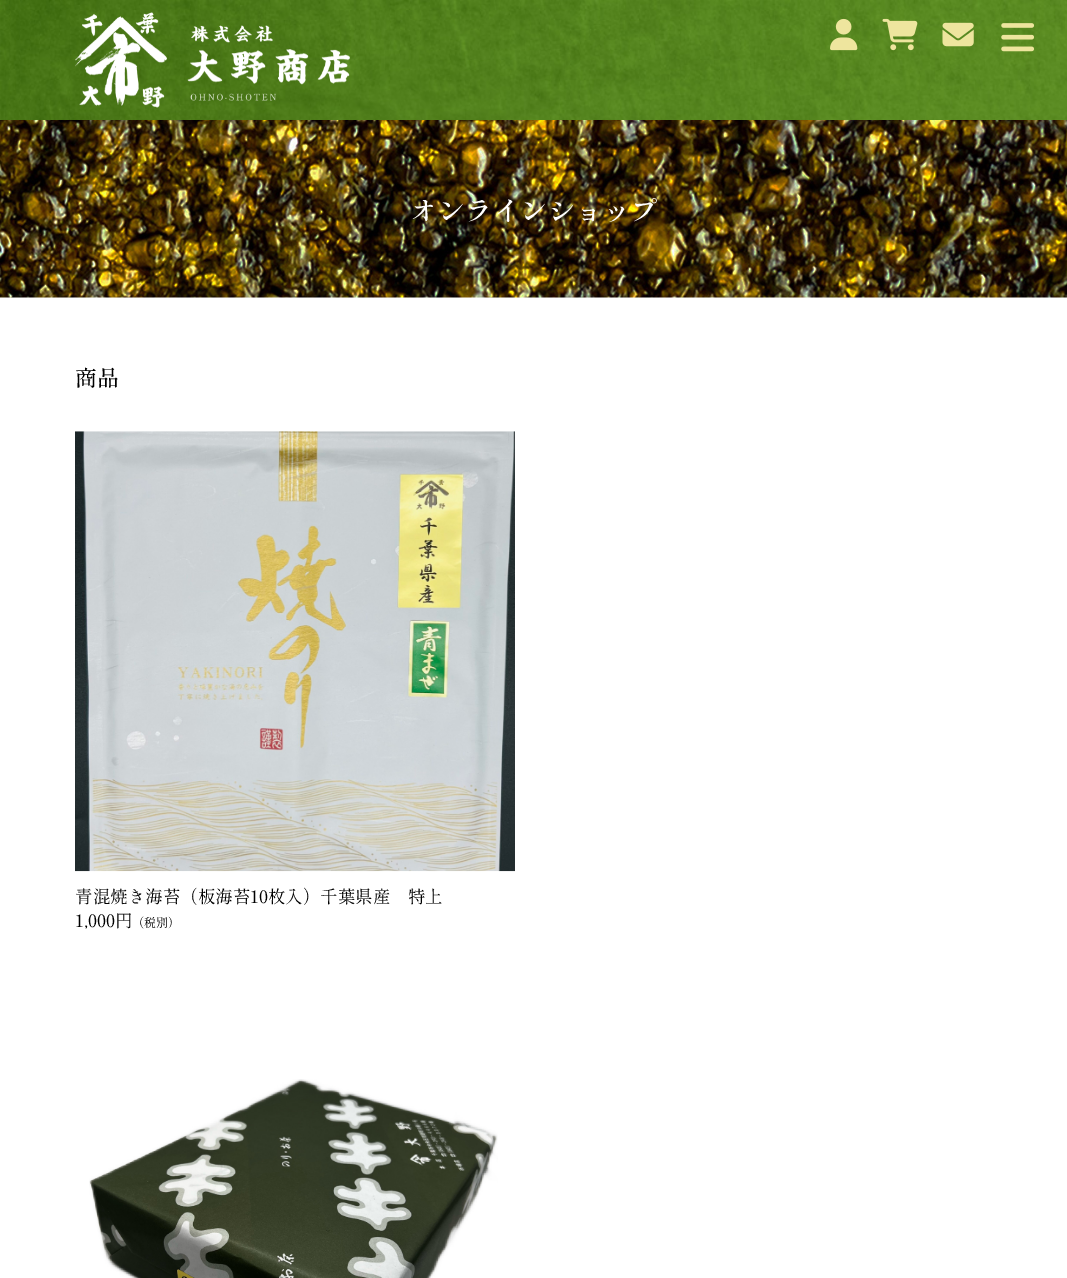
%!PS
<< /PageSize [1067 1278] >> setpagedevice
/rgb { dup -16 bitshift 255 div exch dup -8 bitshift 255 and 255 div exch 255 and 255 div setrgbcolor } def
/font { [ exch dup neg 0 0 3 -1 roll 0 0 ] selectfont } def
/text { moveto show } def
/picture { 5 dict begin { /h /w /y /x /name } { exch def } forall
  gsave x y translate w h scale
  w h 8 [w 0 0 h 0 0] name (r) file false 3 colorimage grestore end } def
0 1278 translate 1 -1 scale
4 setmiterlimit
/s1 { /ShipporiMincho-SemiBold 27.5 font 16#FFFFFF rgb } def
/s2 { /ShipporiMincho-Medium 22 font 16#000000 rgb } def
/s3 { /ShipporiMincho-Regular 17.5 font 16#000000 rgb } def
/s4 { /ShipporiMincho-Regular 12 font 16#000000 rgb } def
16#FFFFFF rgb
0 0 1067 1278 rectfill
(pic1.raw) 0 0 1067 120 picture
(pic2.raw) 75 12 275 96 picture
(pic3.raw) 830 18 28 33 picture
(pic4.raw) 882 18 36 33 picture
(pic5.raw) 942 22 32 25 picture
(pic6.raw) 1001 23 33 29 picture
(pic7.raw) 0 120 1067 178 picture
s1
(オンラインショップ) 410 221 text
s2
(商品) 75 386 text
(pic8.raw) 75 431 440 441 picture
s3
(青混焼き海苔（板海苔10枚入）千葉県産　特上) 75 903 text
(1,000円) 75 927 text
s4
(（税別）) 132 927 text
(pic9.raw) 89 1079 409 199 picture
showpage
